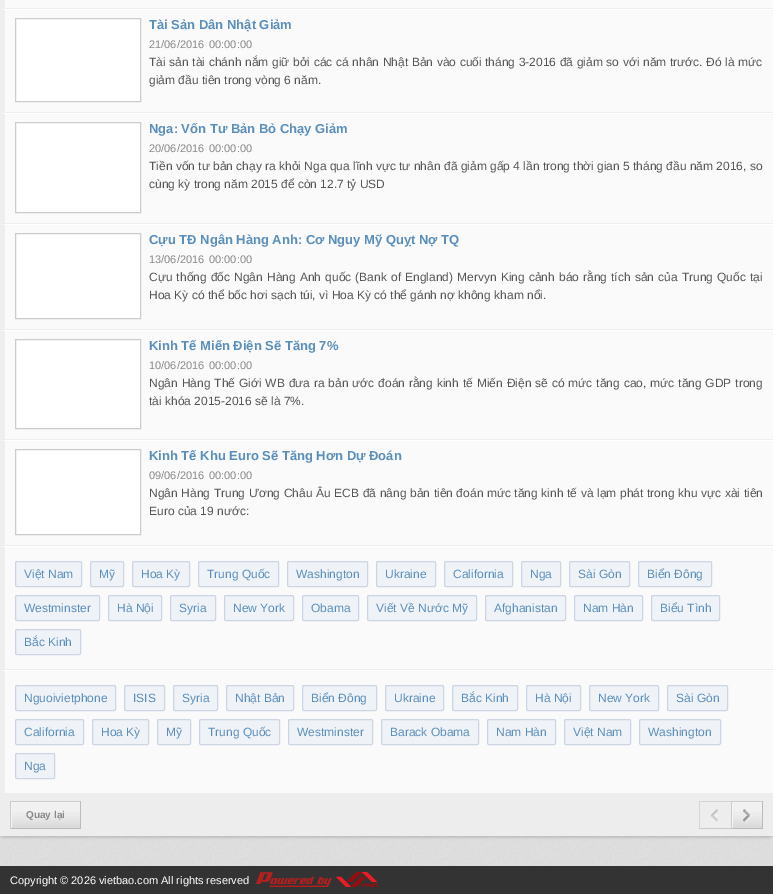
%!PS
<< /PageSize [773 894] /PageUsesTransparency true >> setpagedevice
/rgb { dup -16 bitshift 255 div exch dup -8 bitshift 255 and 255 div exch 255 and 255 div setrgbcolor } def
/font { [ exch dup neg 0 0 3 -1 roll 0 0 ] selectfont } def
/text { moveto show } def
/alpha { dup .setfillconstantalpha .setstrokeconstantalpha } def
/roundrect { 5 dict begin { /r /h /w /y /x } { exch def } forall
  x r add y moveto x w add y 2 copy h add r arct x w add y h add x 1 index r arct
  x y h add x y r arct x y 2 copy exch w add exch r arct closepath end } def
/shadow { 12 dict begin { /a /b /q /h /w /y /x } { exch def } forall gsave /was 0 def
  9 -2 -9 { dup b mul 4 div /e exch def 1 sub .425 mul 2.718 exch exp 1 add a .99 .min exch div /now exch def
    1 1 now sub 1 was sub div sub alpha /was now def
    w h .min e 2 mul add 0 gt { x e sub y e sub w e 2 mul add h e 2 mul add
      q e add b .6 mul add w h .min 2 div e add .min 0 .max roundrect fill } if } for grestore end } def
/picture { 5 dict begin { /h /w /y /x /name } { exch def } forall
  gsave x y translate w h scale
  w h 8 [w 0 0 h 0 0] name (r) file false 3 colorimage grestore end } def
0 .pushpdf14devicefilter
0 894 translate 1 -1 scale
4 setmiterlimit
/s1 { /LiberationSans-Bold 13 font 16#5A8EBB rgb } def
/s2 { /LiberationSans-Regular 11 font 16#888888 rgb } def
/s3 { /LiberationSans-Regular 12 font 16#555555 rgb } def
/s4 { /LiberationSans-Regular 12 font 16#5A8EBB rgb } def
/s5 { /LiberationSans-Bold 10 font 16#888888 rgb } def
/s6 { /LiberationSans-Regular 11 font 16#FFFFFF rgb } def
16#FFFFFF rgb
0 0 773 894 rectfill
(pic1.raw) 0 836 773 30 picture
16#000000 rgb
0 -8 773 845 3 1.5 0.2 shadow
16#FAFAFA rgb
0 0 773 793 rectfill
16#EEEEEE rgb
0 8 773 1 rectfill
0 9 moveto 0 -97 lineto 5 -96 lineto 5 8 lineto closepath fill
16#FFFFFF rgb
0 9 moveto 773 9 lineto 773 10 lineto 5 10 lineto closepath fill
16#EEEEEE rgb
0 112 773 1 rectfill
0 113 moveto 0 9 lineto 5 10 lineto 5 112 lineto closepath fill
16#FFFFFF rgb
15.5 18.5 moveto 140.5 18.5 lineto 140.5 101.5 lineto 15.5 101.5 lineto closepath gsave fill grestore
16#CCCCCC rgb
stroke
s1
(Tài Sản Dân Nhật Giảm) 149 29 text
s2
(21/06/2016) 149 48 text
(00:00:00) 209 48 text
/LiberationSans-Regular 12 font
16#555555 rgb
149 66 moveto 0.3 0 32 (Tài sản tài chánh nắm giữ bởi các cá nhân Nhật Bản vào cuối tháng 3-2016 đã giảm so với năm trước. Đó là mức) widthshow
(giảm đầu tiên trong vòng 6 năm.) 149 84 text
16#FFFFFF rgb
0 113 moveto 773 113 lineto 773 114 lineto 5 114 lineto closepath fill
16#EEEEEE rgb
0 223 773 1 rectfill
0 224 moveto 0 113 lineto 5 114 lineto 5 223 lineto closepath fill
16#FFFFFF rgb
15.5 122.5 moveto 140.5 122.5 lineto 140.5 212.5 lineto 15.5 212.5 lineto closepath gsave fill grestore
16#CCCCCC rgb
stroke
s1
(Nga: Vốn Tư Bản Bỏ Chạy Giảm) 149 133 text
s2
(20/06/2016) 149 152 text
(00:00:00) 209 152 text
s3
(Tiền vốn tư bản chạy ra khỏi Nga qua lĩnh vực tư nhân đã giảm gấp 4 lần trong thời gian 5 tháng đầu năm 2016, so) 149 170 text
(cùng kỳ trong năm 2015 để còn 12.7 tỷ USD) 149 188 text
16#FFFFFF rgb
0 224 moveto 773 224 lineto 773 225 lineto 5 225 lineto closepath fill
16#EEEEEE rgb
0 329 773 1 rectfill
0 330 moveto 0 224 lineto 5 225 lineto 5 329 lineto closepath fill
16#FFFFFF rgb
15.5 233.5 moveto 140.5 233.5 lineto 140.5 318.5 lineto 15.5 318.5 lineto closepath gsave fill grestore
16#CCCCCC rgb
stroke
s1
(Cựu TĐ Ngân Hàng Anh: Cơ Nguy Mỹ Quỵt Nợ TQ) 149 244 text
s2
(13/06/2016) 149 263 text
(00:00:00) 209 263 text
/LiberationSans-Regular 12 font
16#555555 rgb
149 281 moveto 0.8 0 32 (Cựu thống đốc Ngân Hàng Anh quốc \(Bank of England\) Mervyn King cảnh báo rằng tích sản của Trung Quốc tại) widthshow
(Hoa Kỳ có thể bốc hơi sạch túi, vì Hoa Kỳ có thể gánh nợ không kham nổi.) 149 299 text
16#FFFFFF rgb
0 330 moveto 773 330 lineto 773 331 lineto 5 331 lineto closepath fill
16#EEEEEE rgb
0 439 773 1 rectfill
0 440 moveto 0 330 lineto 5 331 lineto 5 439 lineto closepath fill
16#FFFFFF rgb
15.5 339.5 moveto 140.5 339.5 lineto 140.5 428.5 lineto 15.5 428.5 lineto closepath gsave fill grestore
16#CCCCCC rgb
stroke
s1
(Kinh Tế Miến Điện Sẽ Tăng 7%) 149 350 text
s2
(10/06/2016) 149 369 text
(00:00:00) 209 369 text
/LiberationSans-Regular 12 font
16#555555 rgb
149 387 moveto 0.6 0 32 (Ngân Hàng Thế Giới WB đưa ra bản ước đoán rằng kinh tế Miến Điện sẽ có mức tăng cao, mức tăng GDP trong) widthshow
(tài khóa 2015-2016 sẽ là 7%.) 149 405 text
16#FFFFFF rgb
0 440 moveto 773 440 lineto 773 441 lineto 5 441 lineto closepath fill
16#EEEEEE rgb
0 545 773 1 rectfill
0 546 moveto 0 440 lineto 5 441 lineto 5 545 lineto closepath fill
16#FFFFFF rgb
15.5 449.5 moveto 140.5 449.5 lineto 140.5 534.5 lineto 15.5 534.5 lineto closepath gsave fill grestore
16#CCCCCC rgb
stroke
s1
(Kinh Tế Khu Euro Sẽ Tăng Hơn Dự Đoán) 149 460 text
s2
(09/06/2016) 149 479 text
(00:00:00) 209 479 text
/LiberationSans-Regular 12 font
16#555555 rgb
149 497 moveto 0.3 0 32 (Ngân Hàng Trung Ương Châu Âu ECB đã nâng bản tiên đoán mức tăng kinh tế và lạm phát trong khu vực xài tiên) widthshow
(Euro của 19 nước:) 149 515 text
16#FFFFFF rgb
0 546 moveto 773 546 lineto 773 547 lineto 5 547 lineto closepath fill
16#EEEEEE rgb
0 669 773 1 rectfill
0 670 moveto 0 546 lineto 5 547 lineto 5 669 lineto closepath fill
16#EFF2F7 rgb
15.5 561.5 66 25 1.5 roundrect gsave fill grestore
16#CCD5E4 rgb
stroke
s4
(Việt Nam) 24 578 text
16#EFF2F7 rgb
90.5 561.5 33 25 1.5 roundrect gsave fill grestore
16#CCD5E4 rgb
stroke
s4
(Mỹ) 99 578 text
16#EFF2F7 rgb
132.5 561.5 57 25 1.5 roundrect gsave fill grestore
16#CCD5E4 rgb
stroke
s4
(Hoa Kỳ) 141 578 text
16#EFF2F7 rgb
198.5 561.5 80 25 1.5 roundrect gsave fill grestore
16#CCD5E4 rgb
stroke
s4
(Trung Quốc) 207 578 text
16#EFF2F7 rgb
287.5 561.5 80 25 1.5 roundrect gsave fill grestore
16#CCD5E4 rgb
stroke
s4
(Washington) 296 578 text
16#EFF2F7 rgb
376.5 561.5 59 25 1.5 roundrect gsave fill grestore
16#CCD5E4 rgb
stroke
s4
(Ukraine) 385 578 text
16#EFF2F7 rgb
444.5 561.5 68 25 1.5 roundrect gsave fill grestore
16#CCD5E4 rgb
stroke
s4
(California) 453 578 text
16#EFF2F7 rgb
521.5 561.5 39 25 1.5 roundrect gsave fill grestore
16#CCD5E4 rgb
stroke
s4
(Nga) 530 578 text
16#EFF2F7 rgb
569.5 561.5 60 25 1.5 roundrect gsave fill grestore
16#CCD5E4 rgb
stroke
s4
(Sài Gòn) 578 578 text
16#EFF2F7 rgb
638.5 561.5 73 25 1.5 roundrect gsave fill grestore
16#CCD5E4 rgb
stroke
s4
(Biển Đông) 647 578 text
16#EFF2F7 rgb
15.5 595.5 84 25 1.5 roundrect gsave fill grestore
16#CCD5E4 rgb
stroke
s4
(Westminster) 24 612 text
16#EFF2F7 rgb
108.5 595.5 53 25 1.5 roundrect gsave fill grestore
16#CCD5E4 rgb
stroke
s4
(Hà Nội) 117 612 text
16#EFF2F7 rgb
170.5 595.5 45 25 1.5 roundrect gsave fill grestore
16#CCD5E4 rgb
stroke
s4
(Syria) 179 612 text
16#EFF2F7 rgb
224.5 595.5 69 25 1.5 roundrect gsave fill grestore
16#CCD5E4 rgb
stroke
s4
(New York) 233 612 text
16#EFF2F7 rgb
302.5 595.5 56 25 1.5 roundrect gsave fill grestore
16#CCD5E4 rgb
stroke
s4
(Obama) 311 612 text
16#EFF2F7 rgb
367.5 595.5 109 25 1.5 roundrect gsave fill grestore
16#CCD5E4 rgb
stroke
s4
(Viết Về Nước Mỹ) 376 612 text
16#EFF2F7 rgb
485.5 595.5 80 25 1.5 roundrect gsave fill grestore
16#CCD5E4 rgb
stroke
s4
(Afghanistan) 494 612 text
16#EFF2F7 rgb
574.5 595.5 68 25 1.5 roundrect gsave fill grestore
16#CCD5E4 rgb
stroke
s4
(Nam Hàn) 583 612 text
16#EFF2F7 rgb
651.5 595.5 68 25 1.5 roundrect gsave fill grestore
16#CCD5E4 rgb
stroke
s4
(Biểu Tình) 660 612 text
16#EFF2F7 rgb
15.5 629.5 65 25 1.5 roundrect gsave fill grestore
16#CCD5E4 rgb
stroke
s4
(Bắc Kinh) 24 646 text
16#FFFFFF rgb
0 670 moveto 773 670 lineto 773 671 lineto 5 671 lineto closepath fill
16#EEEEEE rgb
0 793 773 1 rectfill
0 794 moveto 0 670 lineto 5 671 lineto 5 793 lineto closepath fill
16#EFF2F7 rgb
15.5 685.5 100 25 1.5 roundrect gsave fill grestore
16#CCD5E4 rgb
stroke
s4
(Nguoivietphone) 24 702 text
16#EFF2F7 rgb
124.5 685.5 40 25 1.5 roundrect gsave fill grestore
16#CCD5E4 rgb
stroke
s4
(ISIS) 133 702 text
16#EFF2F7 rgb
173.5 685.5 44 25 1.5 roundrect gsave fill grestore
16#CCD5E4 rgb
stroke
s4
(Syria) 182 702 text
16#EFF2F7 rgb
226.5 685.5 67 25 1.5 roundrect gsave fill grestore
16#CCD5E4 rgb
stroke
s4
(Nhật Bản) 235 702 text
16#EFF2F7 rgb
302.5 685.5 74 25 1.5 roundrect gsave fill grestore
16#CCD5E4 rgb
stroke
s4
(Biển Đông) 311 702 text
16#EFF2F7 rgb
385.5 685.5 58 25 1.5 roundrect gsave fill grestore
16#CCD5E4 rgb
stroke
s4
(Ukraine) 394 702 text
16#EFF2F7 rgb
452.5 685.5 65 25 1.5 roundrect gsave fill grestore
16#CCD5E4 rgb
stroke
s4
(Bắc Kinh) 461 702 text
16#EFF2F7 rgb
526.5 685.5 54 25 1.5 roundrect gsave fill grestore
16#CCD5E4 rgb
stroke
s4
(Hà Nội) 535 702 text
16#EFF2F7 rgb
589.5 685.5 69 25 1.5 roundrect gsave fill grestore
16#CCD5E4 rgb
stroke
s4
(New York) 598 702 text
16#EFF2F7 rgb
667.5 685.5 60 25 1.5 roundrect gsave fill grestore
16#CCD5E4 rgb
stroke
s4
(Sài Gòn) 676 702 text
16#EFF2F7 rgb
15.5 719.5 68 25 1.5 roundrect gsave fill grestore
16#CCD5E4 rgb
stroke
s4
(California) 24 736 text
16#EFF2F7 rgb
92.5 719.5 56 25 1.5 roundrect gsave fill grestore
16#CCD5E4 rgb
stroke
s4
(Hoa Kỳ) 101 736 text
16#EFF2F7 rgb
157.5 719.5 33 25 1.5 roundrect gsave fill grestore
16#CCD5E4 rgb
stroke
s4
(Mỹ) 166 736 text
16#EFF2F7 rgb
199.5 719.5 80 25 1.5 roundrect gsave fill grestore
16#CCD5E4 rgb
stroke
s4
(Trung Quốc) 208 736 text
16#EFF2F7 rgb
288.5 719.5 84 25 1.5 roundrect gsave fill grestore
16#CCD5E4 rgb
stroke
s4
(Westminster) 297 736 text
16#EFF2F7 rgb
381.5 719.5 97 25 1.5 roundrect gsave fill grestore
16#CCD5E4 rgb
stroke
s4
(Barack Obama) 390 736 text
16#EFF2F7 rgb
487.5 719.5 68 25 1.5 roundrect gsave fill grestore
16#CCD5E4 rgb
stroke
s4
(Nam Hàn) 496 736 text
16#EFF2F7 rgb
564.5 719.5 66 25 1.5 roundrect gsave fill grestore
16#CCD5E4 rgb
stroke
s4
(Việt Nam) 573 736 text
16#EFF2F7 rgb
639.5 719.5 81 25 1.5 roundrect gsave fill grestore
16#CCD5E4 rgb
stroke
s4
(Washington) 648 736 text
16#EFF2F7 rgb
15.5 753.5 39 25 1.5 roundrect gsave fill grestore
16#CCD5E4 rgb
stroke
s4
(Nga) 24 770 text
16#EDEDED rgb
0 794 773 42 rectfill
16#F1F1F1 rgb
12 803 68 25 rectfill
(pic2.raw) 12 812 68 16 picture
gsave
11 802 69 26 rectclip
16#F5F5F5 rgb
-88 703 moveto 179 703 lineto 179 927 lineto -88 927 lineto closepath 12 803 moveto 81 803 lineto 81 829 lineto 12 829 lineto closepath eofill
grestore
16#CCCCCC rgb
10 801 71 1 rectfill
16#BBBBBB rgb
80 801 1 28 rectfill
10 828 71 1 rectfill
16#CCCCCC rgb
10 801 1 28 rectfill
s5
(Quay lại) 26 818 text
16#D6D6D6 rgb
699 801 32 1 rectfill
16#CACACA rgb
699 828 32 1 rectfill
16#D6D6D6 rgb
699 801 1 28 rectfill
(pic3.raw) 711 809 7 13 picture
16#F1F1F1 rgb
733 803 29 25 rectfill
(pic4.raw) 733 812 29 16 picture
gsave
732 802 30 26 rectclip
16#F5F5F5 rgb
633 703 moveto 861 703 lineto 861 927 lineto 633 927 lineto closepath 733 803 moveto 763 803 lineto 763 829 lineto 733 829 lineto closepath eofill
grestore
16#CCCCCC rgb
731 801 32 1 rectfill
16#BBBBBB rgb
762 801 1 28 rectfill
731 828 32 1 rectfill
16#CCCCCC rgb
731 801 1 28 rectfill
(pic5.raw) 743 809 8 14 picture
16#333333 rgb
0 866 773 28 rectfill
s6
(Copyright © 2026 vietbao.com All rights reserved) 10 884 text
(pic6.raw) 255 872 123 15 picture
.poppdf14devicefilter showpage
